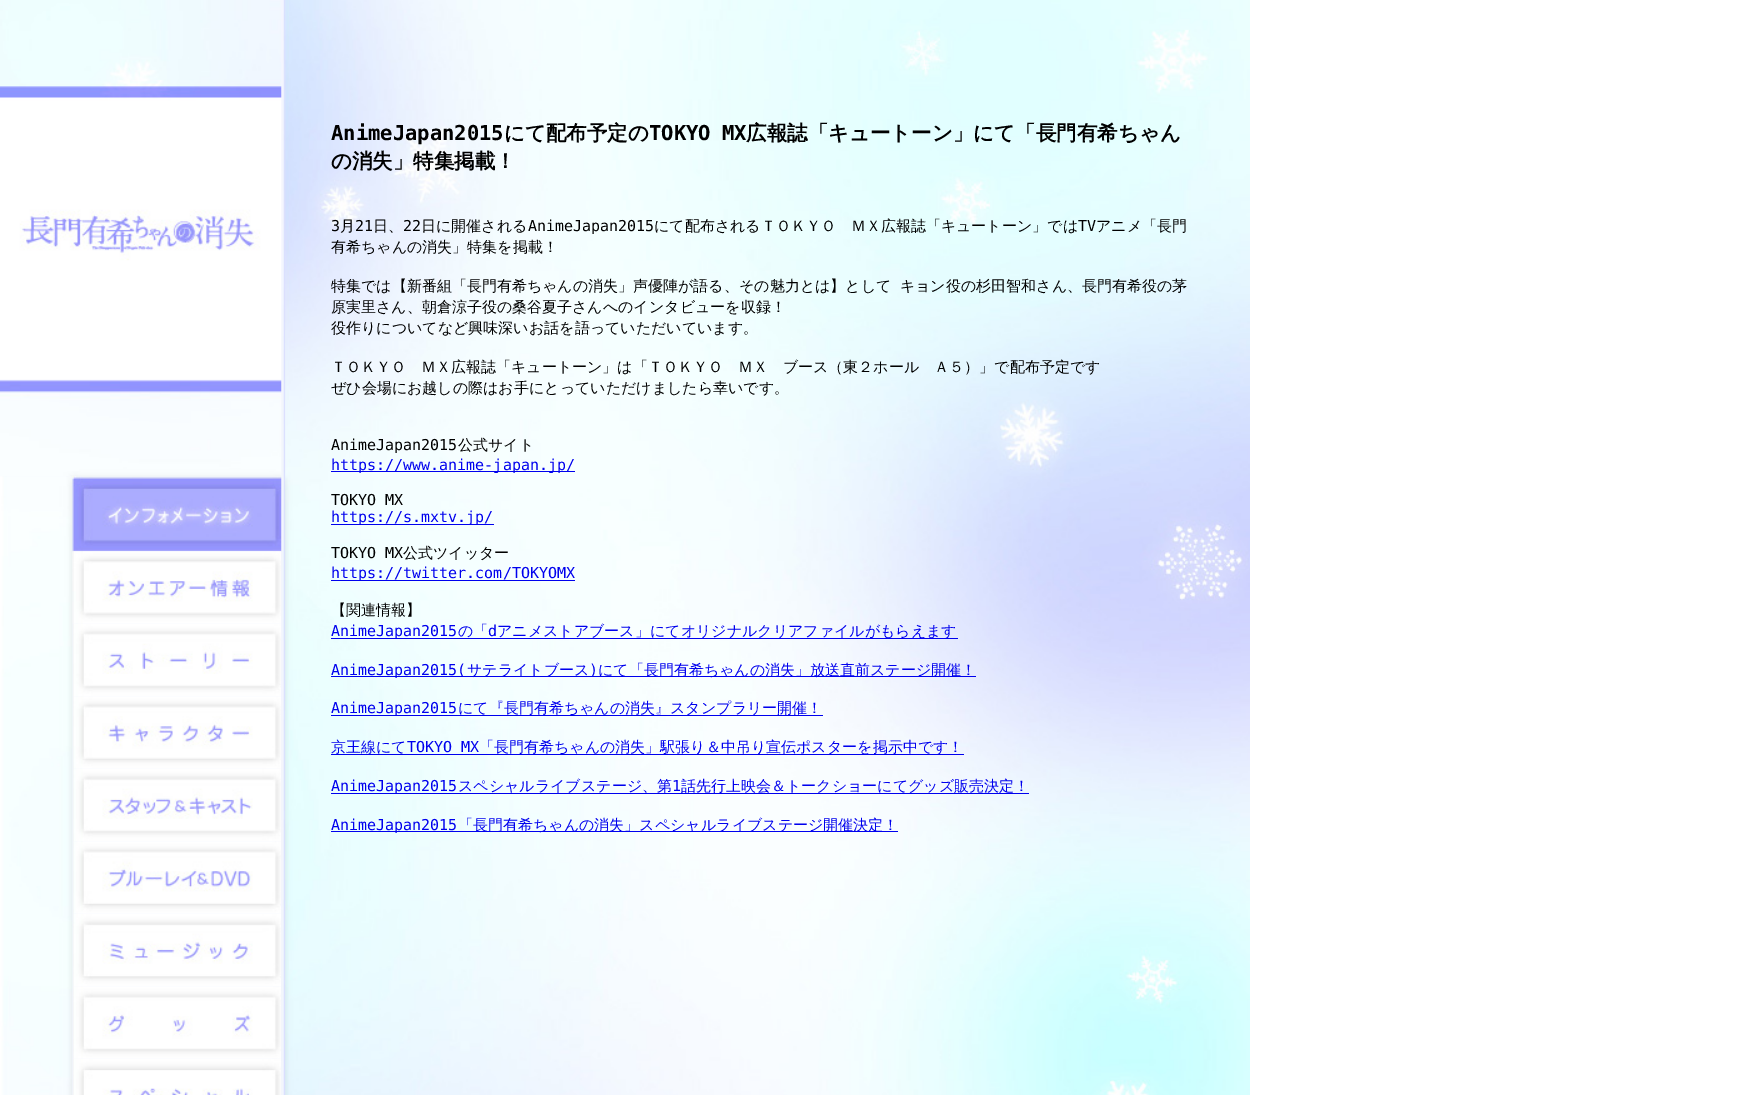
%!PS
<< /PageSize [1750 1095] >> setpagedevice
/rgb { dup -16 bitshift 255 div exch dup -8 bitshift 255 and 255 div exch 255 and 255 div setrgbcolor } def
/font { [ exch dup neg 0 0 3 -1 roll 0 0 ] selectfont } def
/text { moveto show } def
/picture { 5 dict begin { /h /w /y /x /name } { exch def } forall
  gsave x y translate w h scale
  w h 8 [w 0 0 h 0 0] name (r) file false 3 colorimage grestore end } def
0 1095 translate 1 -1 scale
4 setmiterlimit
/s1 { /DejaVuSansMono-Bold 20.5 font 16#000000 rgb } def
/s2 { /WenQuanYiZenHei-Bold 20.5 font 16#000000 rgb } def
/s3 { /DejaVuSansMono-Regular 15 font 16#000000 rgb } def
/s4 { /WenQuanYiZenHei-Medium 15 font 16#000000 rgb } def
/s5 { /DejaVuSansMono-Regular 15 font 16#0000EE rgb } def
/s6 { /WenQuanYiZenHei-Medium 15 font 16#0000EE rgb } def
16#FFFFFF rgb
0 0 1750 1095 rectfill
(pic1.raw) 0 0 1250 1095 picture
(pic2.raw) 0 0 282 476 picture
(pic3.raw) 0 476 73 619 picture
(pic4.raw) 72 476 210 76 picture
(pic5.raw) 72 551 209 73 picture
(pic6.raw) 73 624 208 72 picture
(pic7.raw) 73 696 208 73 picture
(pic8.raw) 73 769 208 72 picture
(pic9.raw) 73 841 208 73 picture
(pic10.raw) 73 914 208 72 picture
(pic11.raw) 73 986 208 73 picture
(pic12.raw) 73 1059 208 36 picture
s1
(AnimeJapan2015) 331 140 text
s2
(にて配布予定の) 504 140 text
/DejaVuSansMono-Bold 20.5 font
649 140 moveto -1 0 32 (TOKYO MX) widthshow
s2
(広報誌「キュートーン」にて「長門有希ちゃん) 746 140 text
(の消失」特集掲載！) 331 168 text
s3
(3) 331 231 text
s4
(月) 340 231 text
s3
(21) 355 231 text
s4
(日、) 373 231 text
s3
(22) 403 231 text
s4
(日に開催される) 421 231 text
s3
(AnimeJapan2015) 528 231 text
s4
(にて配布されるＴＯＫＹＯ　ＭＸ広報誌「キュートーン」では) 654 231 text
s3
(TV) 1078 231 text
s4
(アニメ「長門) 1096 231 text
(有希ちゃんの消失」特集を掲載！) 331 252 text
331 291 moveto 4 0 32 (特集では【新番組「長門有希ちゃんの消失」声優陣が語る、その魅力とは】として キョン役の杉田智和さん、長門有希役の茅) widthshow
(原実里さん、朝倉涼子役の桑谷夏子さんへのインタビューを収録！) 331 312 text
(役作りについてなど興味深いお話を語っていただいています。) 331 333 text
(ＴＯＫＹＯ　ＭＸ広報誌「キュートーン」は「ＴＯＫＹＯ　ＭＸ　ブース（東２ホール　Ａ５）」で配布予定です) 331 372 text
(ぜひ会場にお越しの際はお手にとっていただけましたら幸いです。) 331 393 text
s3
(AnimeJapan2015) 331 450 text
s4
(公式サイト) 458 450 text
16#0000EE rgb
331 471 244 1 rectfill
s5
(https://www.anime-japan.jp/) 331 470 text
s3
(TOKYO MX) 331 505 text
16#0000EE rgb
331 524 163 1 rectfill
(https://s.mxtv.jp/) 331 522 text
s3
(TOKYO MX) 331 558 text
s4
(公式ツイッター) 403 558 text
16#0000EE rgb
331 580 244 1 rectfill
s5
(https://twitter.com/TOKYOMX) 331 578 text
s4
(【関連情報】) 331 615 text
16#0000EE rgb
331 638 627 1 rectfill
s5
(AnimeJapan2015) 331 636 text
s6
(の「) 458 636 text
s5
(d) 488 636 text
s6
(アニメストアブース」にてオリジナルクリアファイルがもらえます) 497 636 text
331 676 645 1 rectfill
s5
(AnimeJapan2015\() 331 675 text
s6
(サテライトブース) 467 675 text
s5
(\)) 589 675 text
s6
(にて「長門有希ちゃんの消失」放送直前ステージ開催！) 598 675 text
331 715 492 1 rectfill
s5
(AnimeJapan2015) 331 713 text
s6
(にて『長門有希ちゃんの消失』スタンプラリー開催！) 458 713 text
(京王線にて) 331 752 text
s5
(TOKYO MX) 407 752 text
331 754 633 1 rectfill
s6
(「長門有希ちゃんの消失」駅張り＆中吊り宣伝ポスターを掲示中です！) 479 752 text
331 793 698 1 rectfill
s5
(AnimeJapan2015) 331 791 text
s6
(スペシャルライブステージ、第) 458 791 text
s5
(1) 672 791 text
s6
(話先行上映会＆トークショーにてグッズ販売決定！) 681 791 text
331 831 567 1 rectfill
s5
(AnimeJapan2015) 331 830 text
s6
(「長門有希ちゃんの消失」スペシャルライブステージ開催決定！) 458 830 text
showpage
